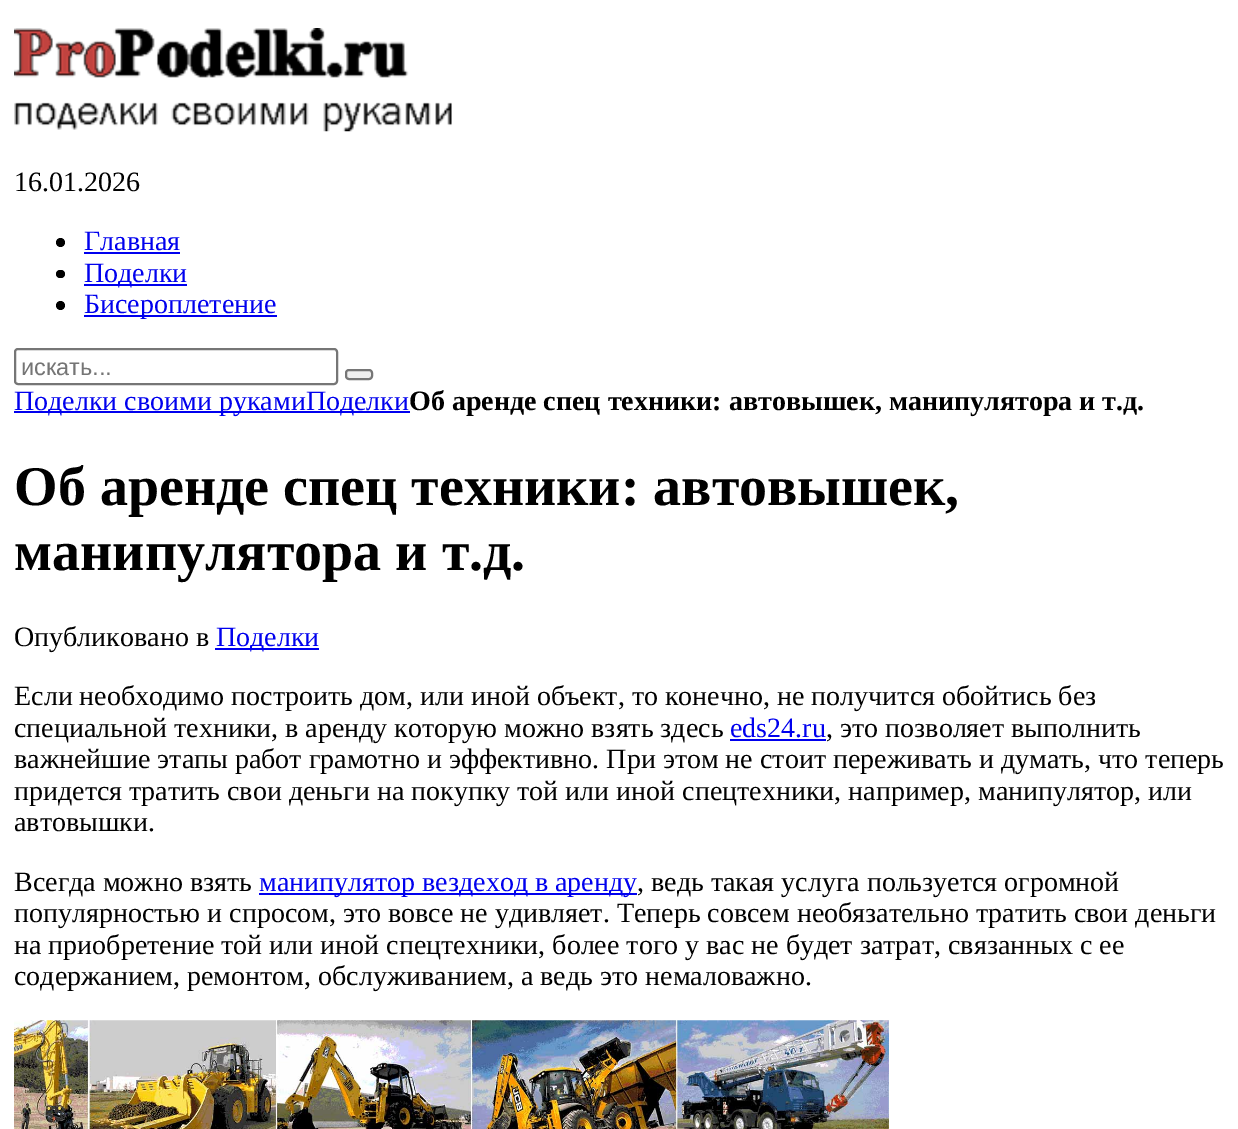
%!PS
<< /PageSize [1238 1129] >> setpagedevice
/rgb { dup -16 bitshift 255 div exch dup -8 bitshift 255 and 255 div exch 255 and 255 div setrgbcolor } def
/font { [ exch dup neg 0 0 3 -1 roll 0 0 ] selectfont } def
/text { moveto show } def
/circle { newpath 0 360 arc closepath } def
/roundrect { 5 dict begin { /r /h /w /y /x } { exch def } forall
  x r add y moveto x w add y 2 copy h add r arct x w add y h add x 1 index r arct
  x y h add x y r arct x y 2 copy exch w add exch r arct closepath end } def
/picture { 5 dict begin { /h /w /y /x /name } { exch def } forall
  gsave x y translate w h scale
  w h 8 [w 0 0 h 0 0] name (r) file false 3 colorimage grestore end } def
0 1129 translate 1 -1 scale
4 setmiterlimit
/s1 { /LiberationSerif-Regular 28 font 16#000000 rgb } def
/s2 { /LiberationSerif-Regular 28 font 16#0000EE rgb } def
/s3 { /LiberationSans-Regular 23.5 font 16#757575 rgb } def
/s4 { /LiberationSerif-Bold 28 font 16#000000 rgb } def
/s5 { /LiberationSerif-Bold 56 font 16#000000 rgb } def
16#FFFFFF rgb
0 0 1238 1129 rectfill
(pic1.raw) 14 28 438 104 picture
s1
(16.01.2026) 14 191 text
60.5 242.5 4.5 circle fill
s2
(Главная) 84 250 text
84 252 96 2 rectfill
16#000000 rgb
56 270 9 8 4 roundrect fill
16#0000EE rgb
84 284 103 2 rectfill
(Поделки) 84 282 text
16#000000 rgb
60.5 305.5 4.5 circle fill
16#0000EE rgb
84 315 193 2 rectfill
(Бисероплетение) 84 313 text
16#767676 rgb
2 setlinewidth
15 349 322 35 3 roundrect stroke
s3
(искать...) 21 375 text
16#EFEFEF rgb
346 370 26 9 3 roundrect gsave fill grestore
16#767676 rgb
stroke
16#0000EE rgb
14 411 396 2 rectfill
s2
(Поделки своими рукамиПоделки) 14 410 text
s4
(Об аренде спец техники: автовышек, манипулятора и т.д.) 409 410 text
s5
(Об аренде спец техники: автовышек,) 14 505 text
(манипулятора и т.д.) 14 570 text
s1
(Опубликовано в) 14 646 text
16#0000EE rgb
215 648 104 2 rectfill
(Поделки) 216 646 text
s1
(Если необходимо построить дом, или иной объект, то конечно, не получится обойтись без) 14 705 text
(специальной техники, в аренду которую можно взять здесь) 14 737 text
s2
(eds24.ru) 730 737 text
730 739 96 2 rectfill
s1
(, это позволяет выполнить) 826 737 text
(важнейшие этапы работ грамотно и эффективно. При этом не стоит переживать и думать, что теперь) 14 768 text
(придется тратить свои деньги на покупку той или иной спецтехники, например, манипулятор, или) 14 800 text
(автовышки.) 14 831 text
(Всегда можно взять) 14 891 text
16#0000EE rgb
259 893 378 2 rectfill
(манипулятор вездеход в аренду) 259 891 text
s1
(, ведь такая услуга пользуется огромной) 637 891 text
(популярностью и спросом, это вовсе не удивляет. Теперь совсем необязательно тратить свои деньги) 14 922 text
(на приобретение той или иной спецтехники, более того у вас не будет затрат, связанных с ее) 14 954 text
(содержанием, ремонтом, обслуживанием, а ведь это немаловажно.) 14 985 text
(pic2.raw) 14 1020 875 109 picture
showpage
